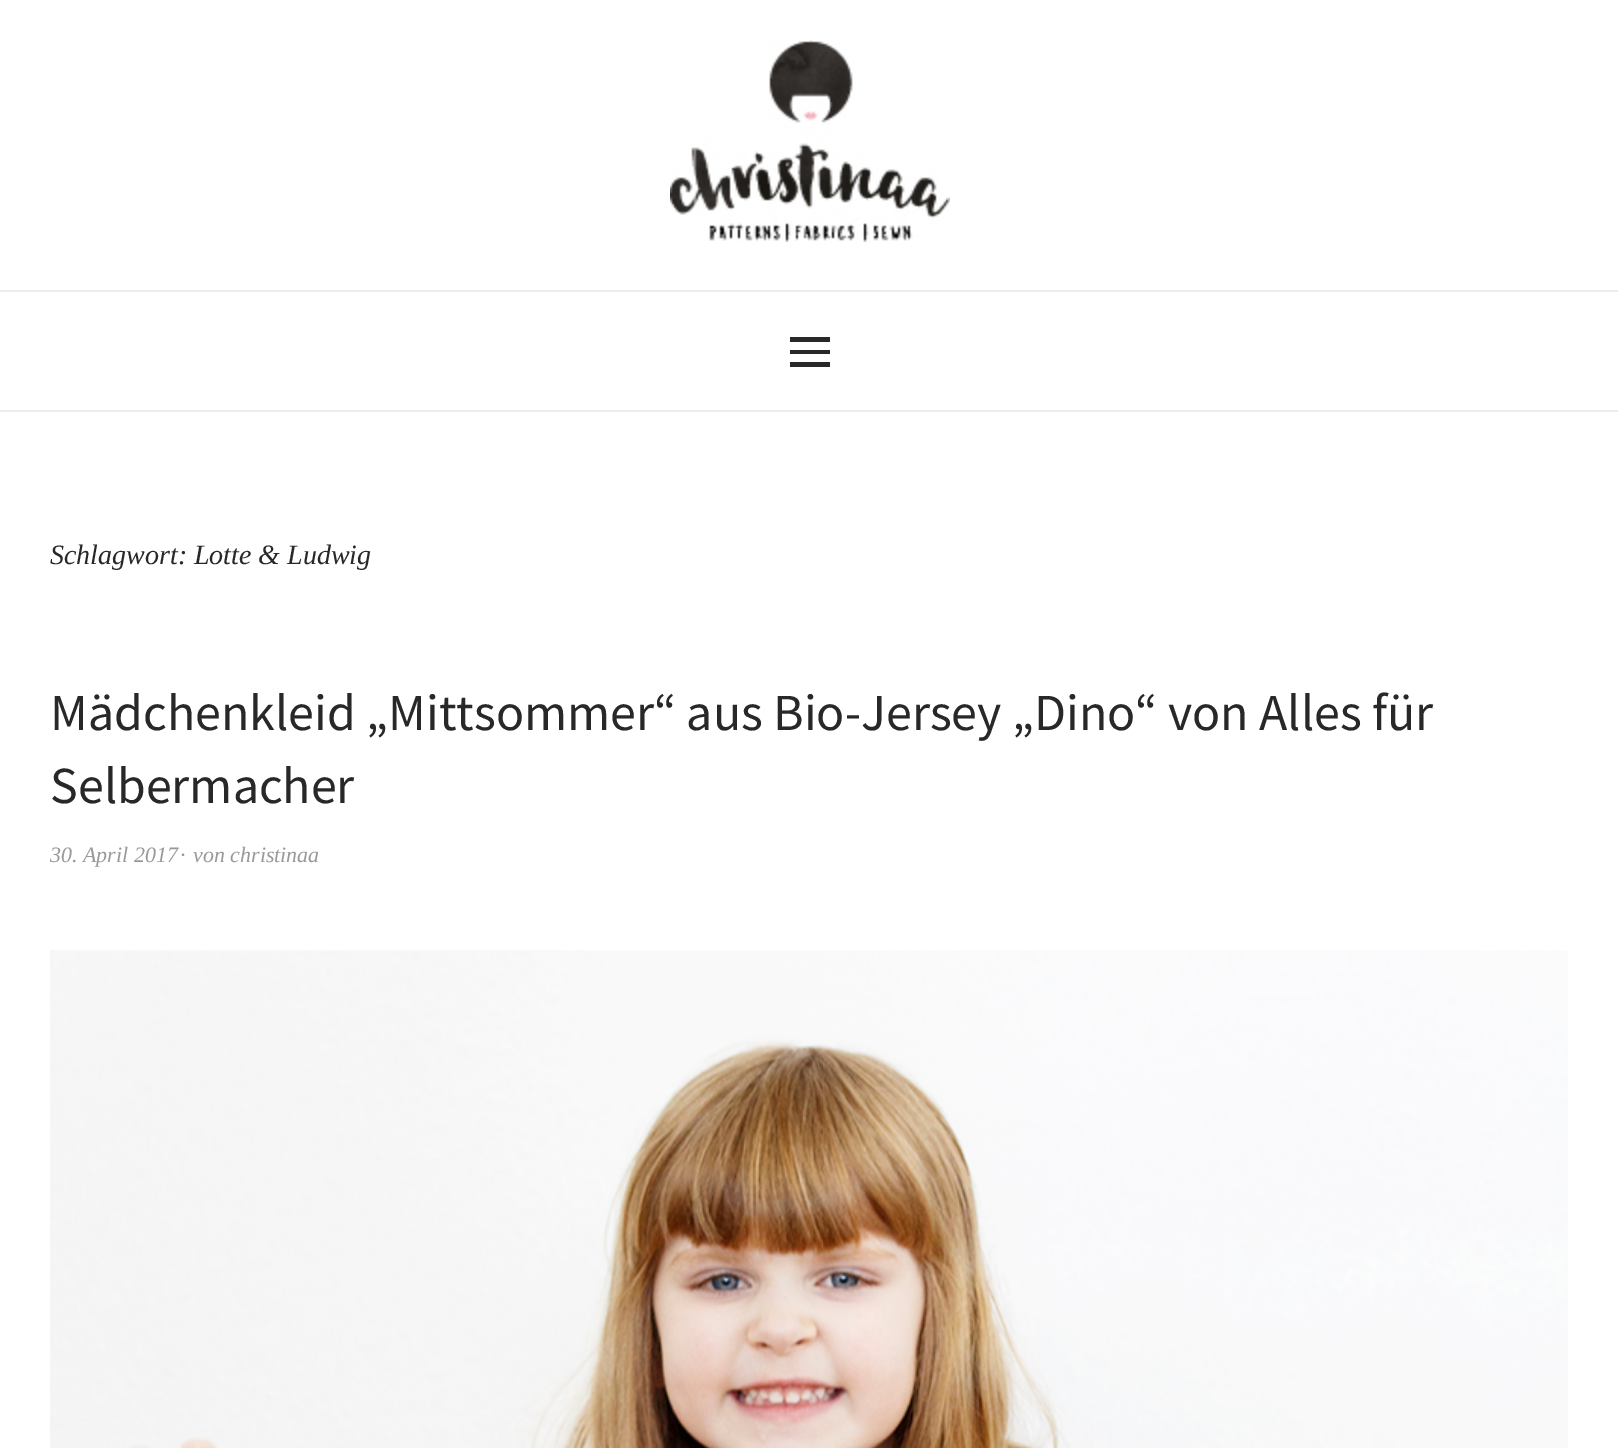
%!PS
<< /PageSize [1618 1448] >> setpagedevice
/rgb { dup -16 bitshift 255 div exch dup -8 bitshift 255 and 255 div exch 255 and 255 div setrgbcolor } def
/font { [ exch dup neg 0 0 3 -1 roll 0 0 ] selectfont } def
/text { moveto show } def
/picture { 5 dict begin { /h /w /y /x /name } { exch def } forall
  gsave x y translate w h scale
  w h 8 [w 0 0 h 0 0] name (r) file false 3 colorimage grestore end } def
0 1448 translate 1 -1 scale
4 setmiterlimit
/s1 { /LiberationSerif-Italic 28 font 16#282828 rgb } def
/s2 { /SourceSansPro-Regular 52 font 16#282828 rgb } def
/s3 { /LiberationSerif-Italic 22 font 16#999999 rgb } def
16#FFFFFF rgb
0 0 1618 1448 rectfill
16#EDEDEE rgb
0 290 1618 2 rectfill
(pic1.raw) 670 40 280 202 picture
0 410 1618 2 rectfill
16#282828 rgb
790 367 moveto 790 362 lineto 830 362 lineto 830 367 lineto closepath 790 337 moveto 830 337 lineto 830 342 lineto 790 342 lineto closepath 790 354 moveto 790 350 lineto 830 350 lineto 830 354 lineto closepath fill
s1
(Schlagwort: Lotte & Ludwig) 50 564 text
s2
(Mädchenkleid „Mittsommer“ aus Bio-Jersey „Dino“ von Alles für) 50 730 text
(Selbermacher) 50 803 text
s3
(30. April 2017) 50 862 text
(∙) 180 862 text
(von christinaa) 193 862 text
(pic2.raw) 50 950 1518 498 picture
showpage
